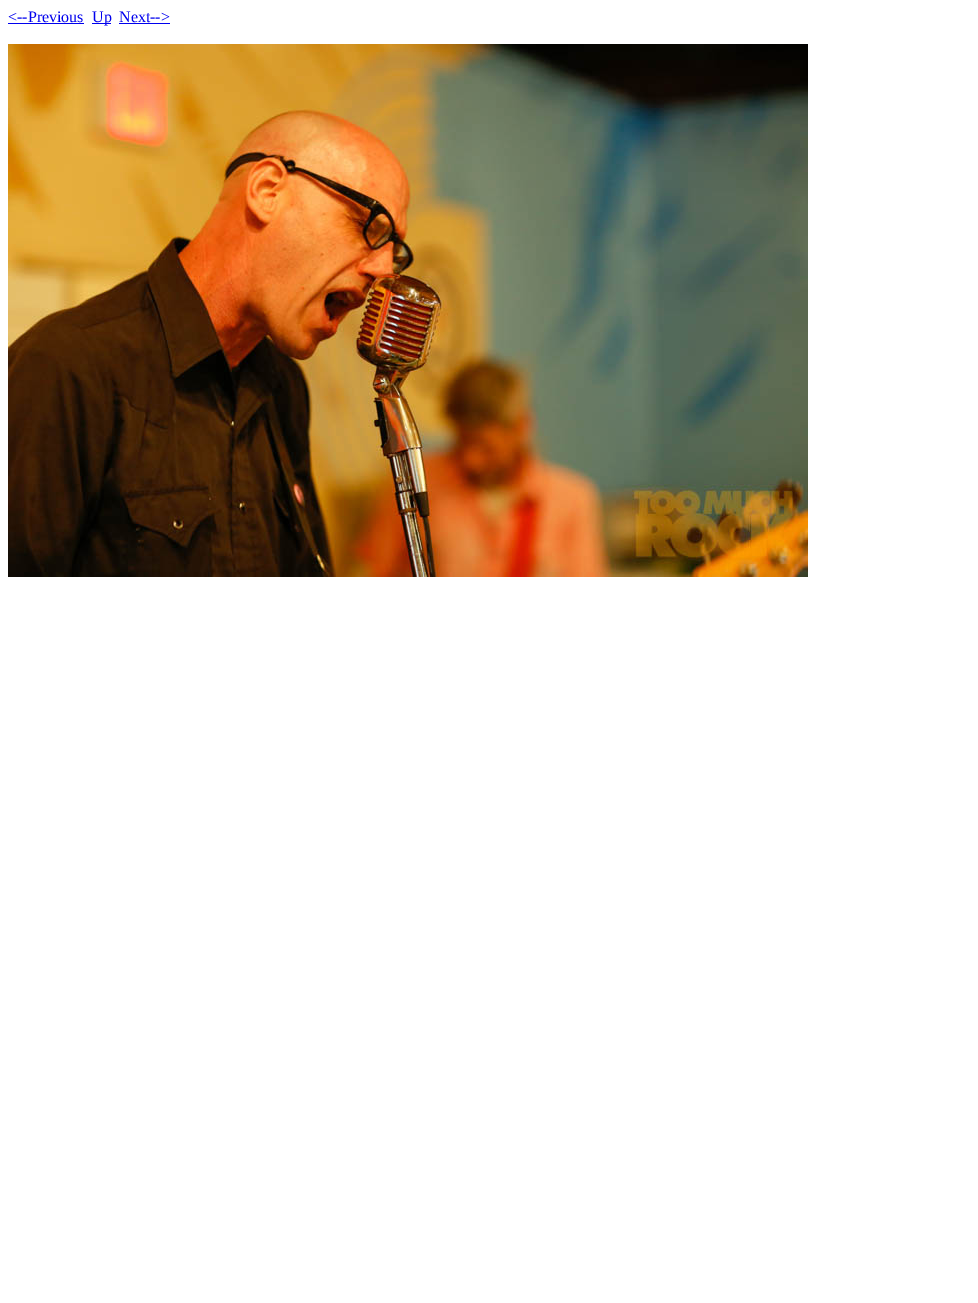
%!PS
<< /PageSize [978 1303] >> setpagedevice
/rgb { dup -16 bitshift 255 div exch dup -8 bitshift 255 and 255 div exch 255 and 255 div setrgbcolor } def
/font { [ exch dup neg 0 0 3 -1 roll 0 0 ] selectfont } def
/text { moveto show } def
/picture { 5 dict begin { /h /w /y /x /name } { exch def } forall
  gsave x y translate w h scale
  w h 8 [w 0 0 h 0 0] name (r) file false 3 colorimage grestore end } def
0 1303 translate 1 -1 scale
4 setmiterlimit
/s1 { /LiberationSerif-Regular 16 font 16#0000EE rgb } def
16#FFFFFF rgb
0 0 978 1303 rectfill
s1
(<--Previous) 8 22 text
8 23 76 1 rectfill
92 23 19 1 rectfill
(Up) 92 22 text
(Next-->) 119 22 text
119 23 51 1 rectfill
(pic1.raw) 8 44 800 533 picture
showpage
